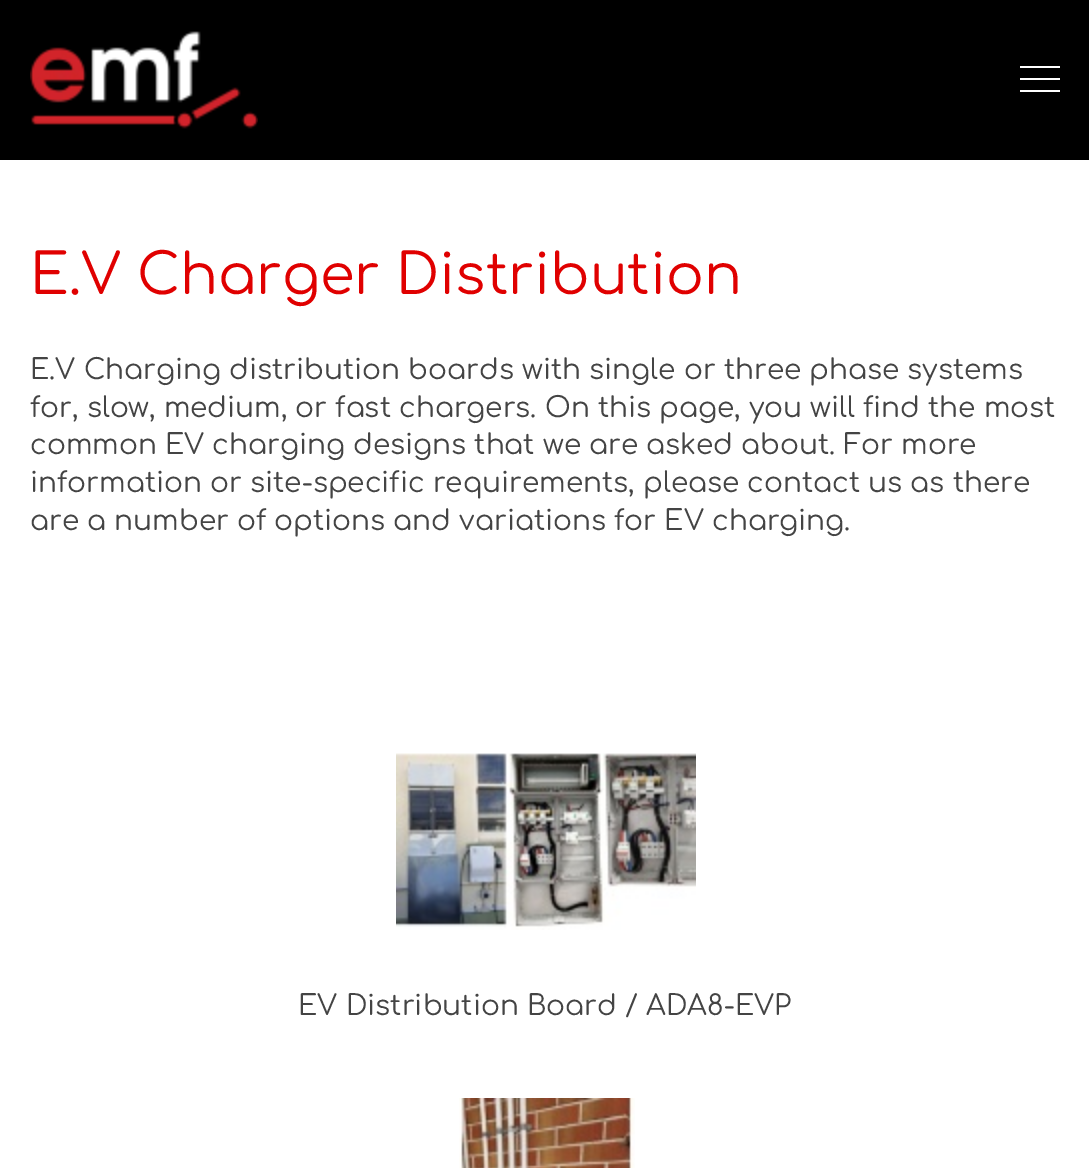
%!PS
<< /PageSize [1089 1168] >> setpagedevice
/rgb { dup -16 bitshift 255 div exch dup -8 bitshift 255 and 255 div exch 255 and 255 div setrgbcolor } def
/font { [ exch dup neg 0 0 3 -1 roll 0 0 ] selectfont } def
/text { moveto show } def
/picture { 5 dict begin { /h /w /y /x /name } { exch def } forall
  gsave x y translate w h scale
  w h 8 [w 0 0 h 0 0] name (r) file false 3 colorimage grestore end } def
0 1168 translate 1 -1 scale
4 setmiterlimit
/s1 { /Comfortaa-Regular 56 font 16#E00000 rgb } def
/s2 { /Comfortaa-Regular 28 font 16#444444 rgb } def
16#FFFFFF rgb
0 0 1089 1168 rectfill
16#000000 rgb
0 0 1089 160 rectfill
(pic1.raw) 30 31 228 98 picture
16#FFFFFF rgb
1020 66 40 2 rectfill
1020 78 40 2 rectfill
1020 90 40 2 rectfill
s1
(E.V Charger Distribution) 30 294 text
s2
(E.V Charging distribution boards with single or three phase systems) 30 379 text
(for, slow, medium, or fast chargers. On this page, you will find the most) 30 417 text
(common EV charging designs that we are asked about. For more) 30 454 text
(information or site-specific requirements, please contact us as there) 30 492 text
(are a number of options and variations for EV charging.) 30 530 text
(pic2.raw) 396 753 300 177 picture
(EV Distribution Board / ADA8-EVP) 298 1015 text
(pic3.raw) 459 1098 176 70 picture
showpage
